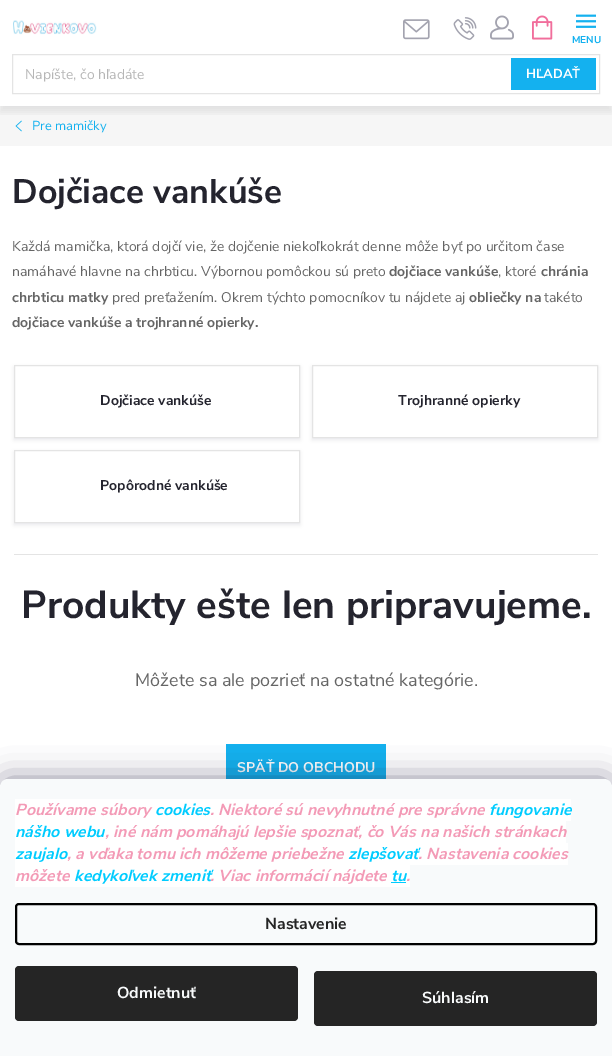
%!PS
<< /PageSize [612 1056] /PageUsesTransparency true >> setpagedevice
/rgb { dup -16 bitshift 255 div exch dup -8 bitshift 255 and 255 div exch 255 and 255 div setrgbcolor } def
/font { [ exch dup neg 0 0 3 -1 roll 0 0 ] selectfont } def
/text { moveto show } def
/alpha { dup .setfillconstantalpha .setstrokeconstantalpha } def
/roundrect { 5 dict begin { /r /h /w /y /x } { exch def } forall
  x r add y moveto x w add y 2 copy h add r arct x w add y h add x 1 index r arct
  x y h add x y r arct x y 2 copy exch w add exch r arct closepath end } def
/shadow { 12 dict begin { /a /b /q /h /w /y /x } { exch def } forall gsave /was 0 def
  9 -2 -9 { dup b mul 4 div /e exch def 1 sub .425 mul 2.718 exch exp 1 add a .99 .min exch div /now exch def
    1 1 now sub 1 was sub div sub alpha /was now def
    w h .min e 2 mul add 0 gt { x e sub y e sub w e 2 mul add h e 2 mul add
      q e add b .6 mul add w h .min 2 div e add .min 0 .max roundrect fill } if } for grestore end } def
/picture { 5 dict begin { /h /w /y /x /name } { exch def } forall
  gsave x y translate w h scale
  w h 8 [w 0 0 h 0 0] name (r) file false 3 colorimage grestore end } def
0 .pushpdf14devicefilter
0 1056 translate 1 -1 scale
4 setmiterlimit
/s1 { /NunitoSans-Bold 10 font 16#14B1EF rgb } def
/s2 { /NunitoSans-Regular 14 font 16#B6B6B6 rgb } def
/s3 { /NunitoSans-Bold 13 font 16#FFFFFF rgb } def
/s4 { /NunitoSans-Regular 13 font 16#14B1EF rgb } def
/s5 { /NunitoSans-Bold 34 font 16#24242E rgb } def
/s6 { /NunitoSans-Regular 14 font 16#656565 rgb } def
/s7 { /NunitoSans-Bold 14 font 16#656565 rgb } def
/s8 { /NunitoSans-Bold 14 font 16#24242E rgb } def
/s9 { /NunitoSans-Bold 39 font 16#24242E rgb } def
/s10 { /NunitoSans-Regular 18 font 16#656565 rgb } def
/s11 { /NunitoSans-Bold 14 font 16#FFFFFF rgb } def
/s12 { /NunitoSans-BoldItalic 16 font 16#F39AB6 rgb } def
/s13 { /NunitoSans-BoldItalic 16 font 16#00CCFF rgb } def
/s14 { /NunitoSans-Bold 16 font 16#252525 rgb } def
/s15 { /NunitoSans-Bold 16 font 16#F8FAFB rgb } def
16#FFFFFF rgb
0 0 612 1056 rectfill
(pic1.raw) 403 19 27 21 picture
(pic2.raw) 453 17 24 23 picture
(pic3.raw) 490 15 24 25 picture
(pic4.raw) 576 14 20 14 picture
s1
(MENU) 572 43 text
16#F6F6F6 rgb
0 106 612 40 rectfill
(pic7.raw) 15 120 7 12 picture
gsave
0 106 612 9 rectclip
16#24242E rgb
0 60 612 52 0 4 0.1 shadow
grestore
(pic5.raw) 13 20 84 15 picture
(pic6.raw) 532 15 21 25 picture
16#E4E4E4 rgb
12.5 54.5 587 39 rectstroke
s2
(Napíšte, čo hľadáte) 25 79 text
16#14B1EF rgb
511 58 85 32 rectfill
s3
(HĽADAŤ) 526 78 text
s4
(Pre mamičky) 32 130 text
s5
(Dojčiace vankúše) 12 203 text
s6
(Každá mamička, ktorá dojčí vie, že dojčenie niekoľkokrát denne môže byť po určitom čase) 12 251 text
(namáhavé hlavne na chrbticu. Výbornou pomôckou sú preto) 12 276 text
s7
(dojčiace vankúše) 389 276 text
s6
(, ktoré) 498 276 text
s7
(chránia) 541 276 text
(chrbticu matky) 12 302 text
s6
(pred preťažením. Okrem týchto pomocníkov tu nájdete aj) 112 302 text
s7
(obliečky na) 469 302 text
s6
(takéto) 544 302 text
s7
(dojčiace vankúše a trojhranné opierky.) 12 327 text
gsave
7 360 moveto 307 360 lineto 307 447 lineto 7 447 lineto closepath 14 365 moveto 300 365 lineto 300 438 lineto 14 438 lineto closepath eoclip newpath
16#A3A3AF rgb
14 367 286 73 0 2 0.22 shadow
grestore
16#E4E4E4 rgb
14.5 365.5 285 72 rectstroke
s8
(Dojčiace vankúše) 100 405 text
gsave
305 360 moveto 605 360 lineto 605 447 lineto 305 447 lineto closepath 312 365 moveto 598 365 lineto 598 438 lineto 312 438 lineto closepath eoclip newpath
16#A3A3AF rgb
312 367 286 73 0 2 0.22 shadow
grestore
16#E4E4E4 rgb
312.5 365.5 285 72 rectstroke
s8
(Trojhranné opierky) 398 405 text
gsave
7 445 moveto 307 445 lineto 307 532 lineto 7 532 lineto closepath 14 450 moveto 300 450 lineto 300 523 lineto 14 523 lineto closepath eoclip newpath
16#A3A3AF rgb
14 452 286 73 0 2 0.22 shadow
grestore
16#E4E4E4 rgb
14.5 450.5 285 72 rectstroke
s8
(Popôrodné vankúše) 100 490 text
16#E4E4E4 rgb
14 554 584 1 rectfill
s9
(Produkty ešte len pripravujeme.) 21 618 text
s10
(Môžete sa ale pozrieť na ostatné kategórie.) 135 686 text
16#14B1EF rgb
226 744 160 35 rectfill
s11
(SPÄŤ DO OBCHODU) 237 772 text
16#1B1939 rgb
0 779 612 277 8 15 0.5 shadow
16#F8FAFB rgb
8 779 moveto 604 779 lineto 608.5 779 612 782.5 612 787 curveto 612 1056 lineto 0 1056 lineto 0 787 lineto 0 782.5 3.5 779 8 779 curveto closepath fill
16#FFFFFF rgb
15 799 556 22 rectfill
s12
(Používame súbory) 15 815 text
s13
(cookies) 155 815 text
s12
(. Niektoré sú nevyhnutné pre správne) 210 815 text
s13
(fungovanie) 489 815 text
16#FFFFFF rgb
15 821 551 22 rectfill
s13
(nášho webu) 15 837 text
s12
(, iné nám pomáhajú lepšie spoznať, čo Vás na našich stránkach) 105 837 text
16#FFFFFF rgb
15 843 553 22 rectfill
s13
(zaujalo) 15 859 text
s12
(, a vďaka tomu ich môžeme priebežne) 67 859 text
s13
(zlepšovať) 348 859 text
s12
(. Nastavenia cookies) 418 859 text
16#FFFFFF rgb
15 865 395 22 rectfill
s12
(môžete) 15 881 text
s13
(kedykoľvek zmeniť) 74 881 text
s12
(. Viac informácií nájdete) 210 881 text
s13
(tu) 391 881 text
s12
(.) 406 881 text
16#00CCFF rgb
391 882 15 1 rectfill
16#000000 rgb
2 setlinewidth
16 904 580 40 3 roundrect stroke
s14
(Nastavenie) 265 929 text
15 966 283 55 4 roundrect fill
s15
(Odmietnuť) 117 998 text
16#252525 rgb
314 971 283 55 4 roundrect fill
s15
(Súhlasím) 422 1003 text
.poppdf14devicefilter showpage
